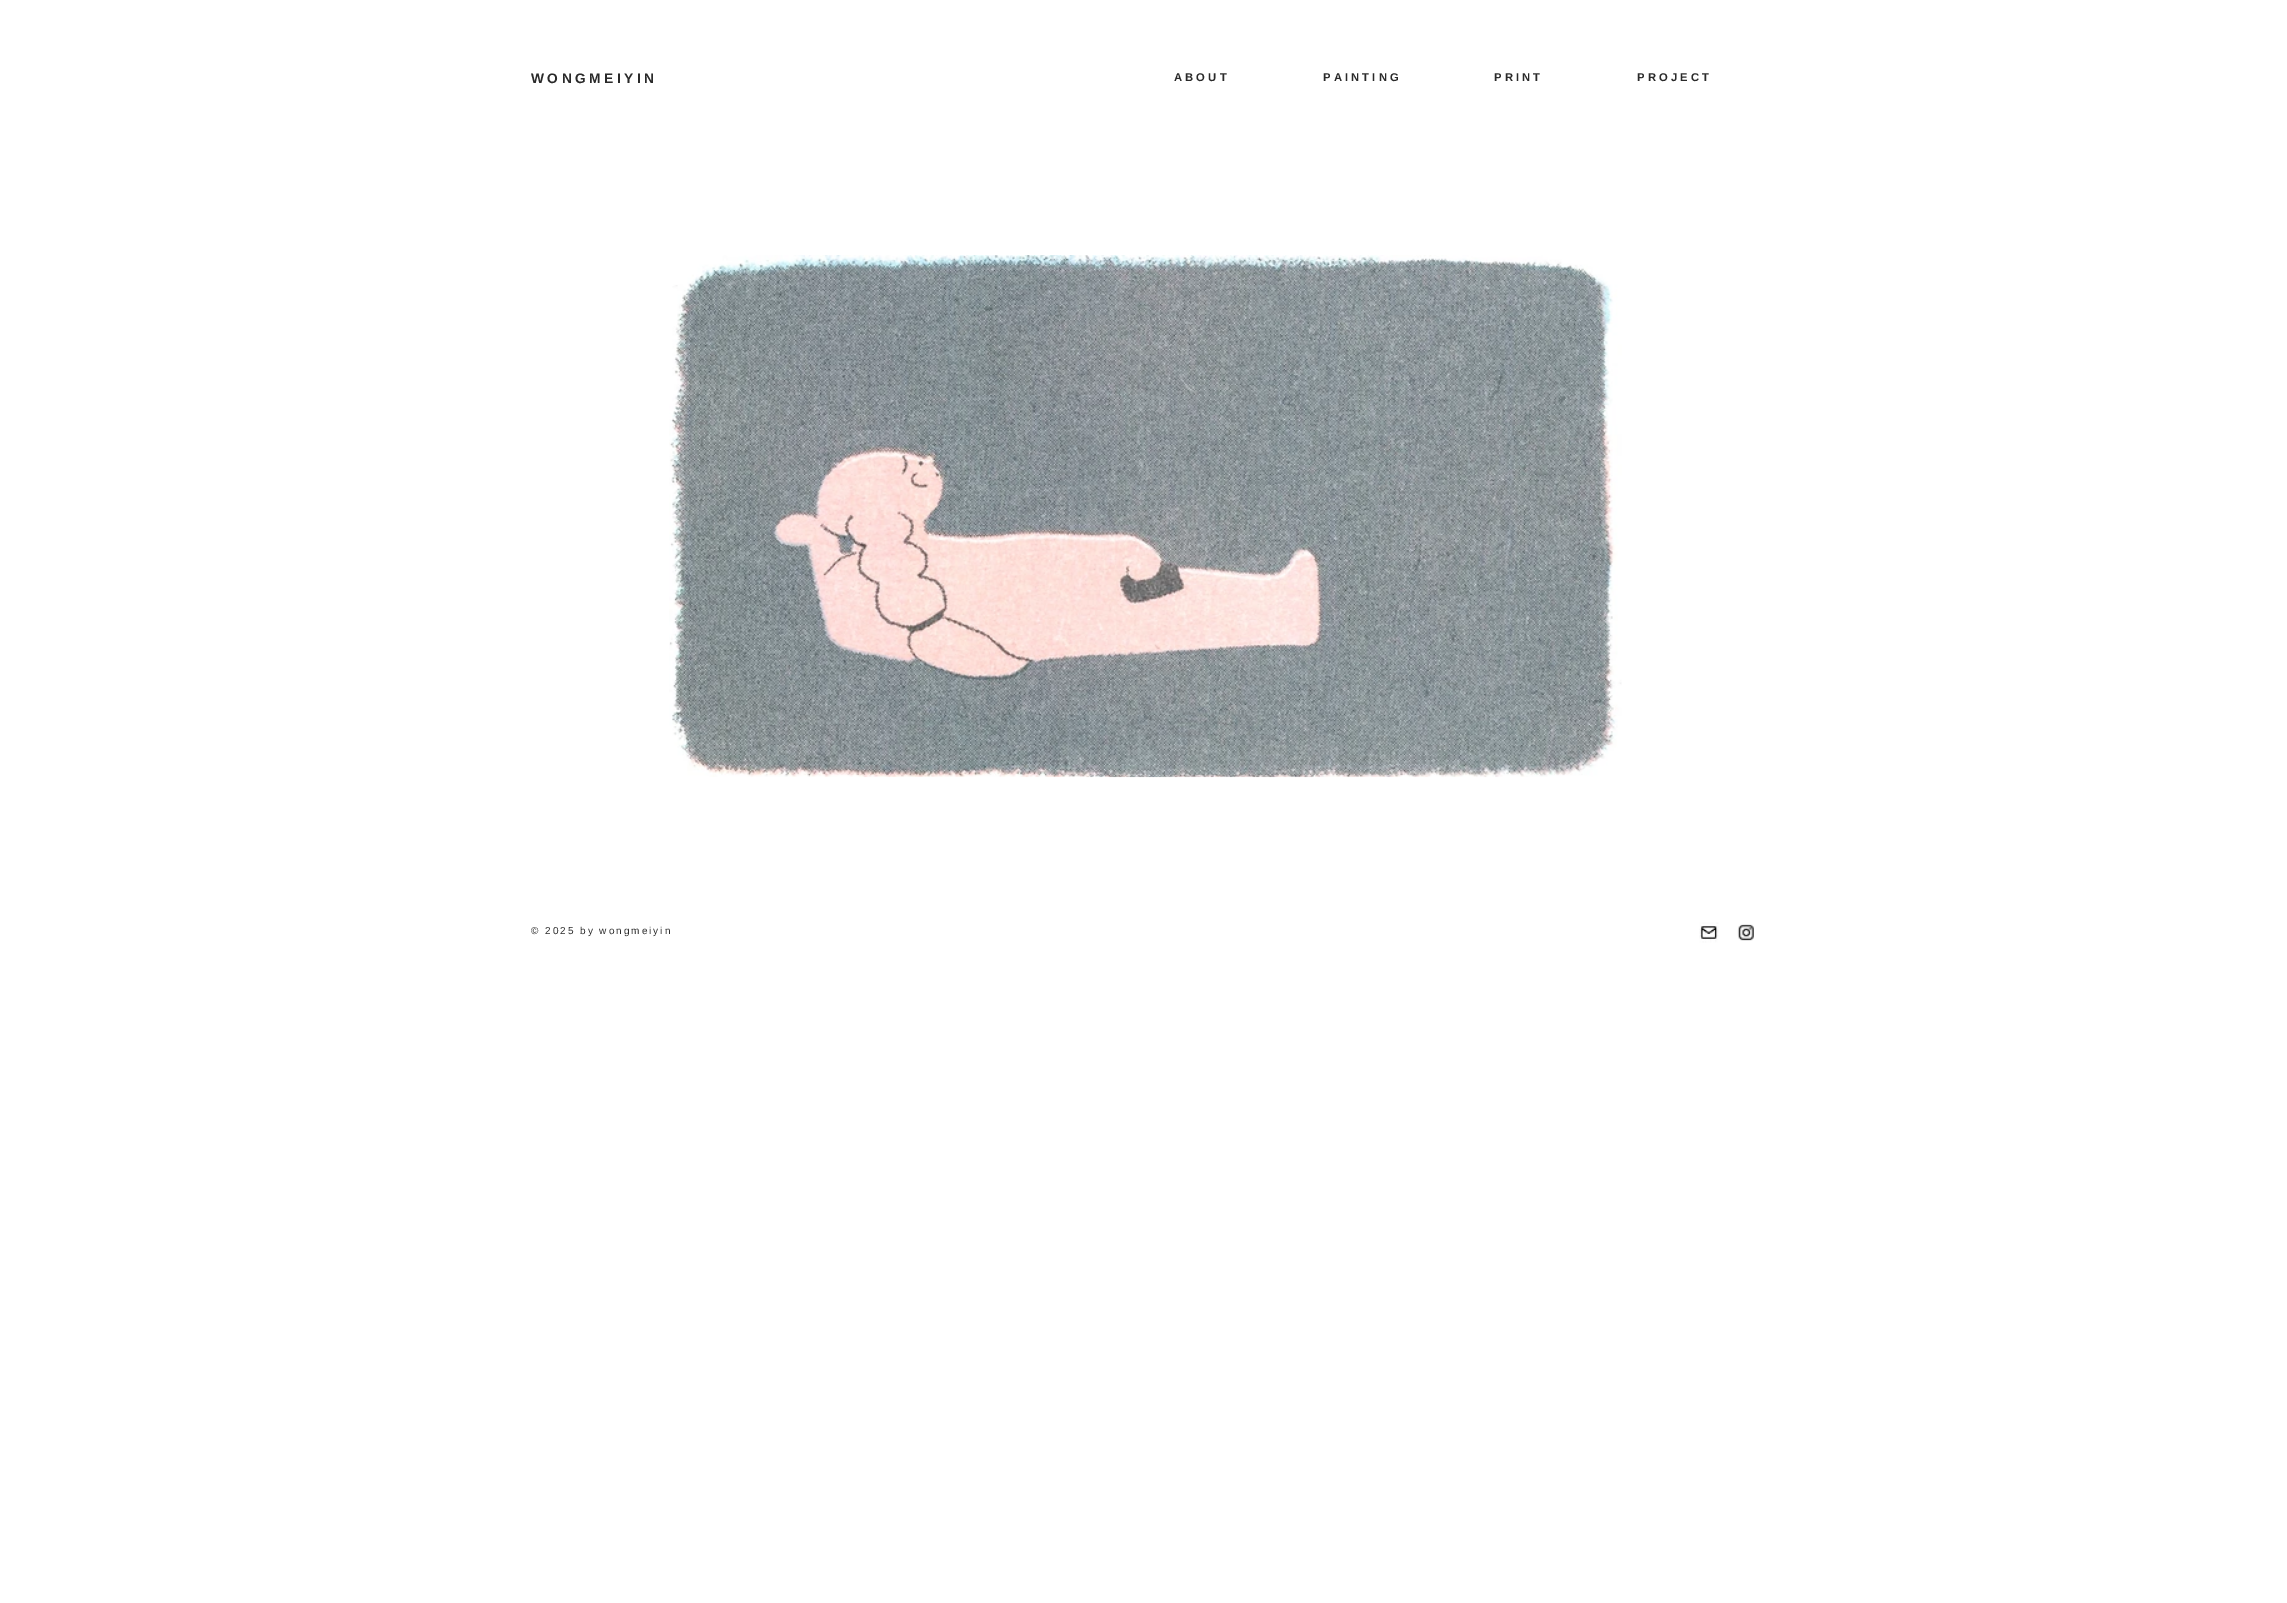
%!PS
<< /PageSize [2287 1603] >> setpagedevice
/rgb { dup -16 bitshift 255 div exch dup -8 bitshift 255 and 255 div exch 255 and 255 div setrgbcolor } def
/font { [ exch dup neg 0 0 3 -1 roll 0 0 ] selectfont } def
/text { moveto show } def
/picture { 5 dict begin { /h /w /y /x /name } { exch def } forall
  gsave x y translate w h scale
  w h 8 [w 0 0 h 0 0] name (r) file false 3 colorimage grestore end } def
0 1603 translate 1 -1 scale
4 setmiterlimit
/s1 { /LiberationSans-Bold 11.25 font 16#2A2A2A rgb } def
16#FFFFFF rgb
0 0 2287 1603 rectfill
/LiberationSans-Bold 13.75 font
16#2A2A2A rgb
531 83 moveto 3.5 0 (WONGMEIYIN) ashow
s1
(A B O U T) 1174 81 text
(P A I N T I N G) 1323 81 text
(P R I N T) 1494 81 text
(P R O J E C T) 1637 81 text
(pic1.raw) 669 255 953 523 picture
/LiberationSans-Regular 10 font
531 934 moveto 2 0 (© 2025 by wongmeiyin) ashow
(pic2.raw) 1699 922 20 21 picture
(pic3.raw) 1737 924 17 17 picture
showpage
